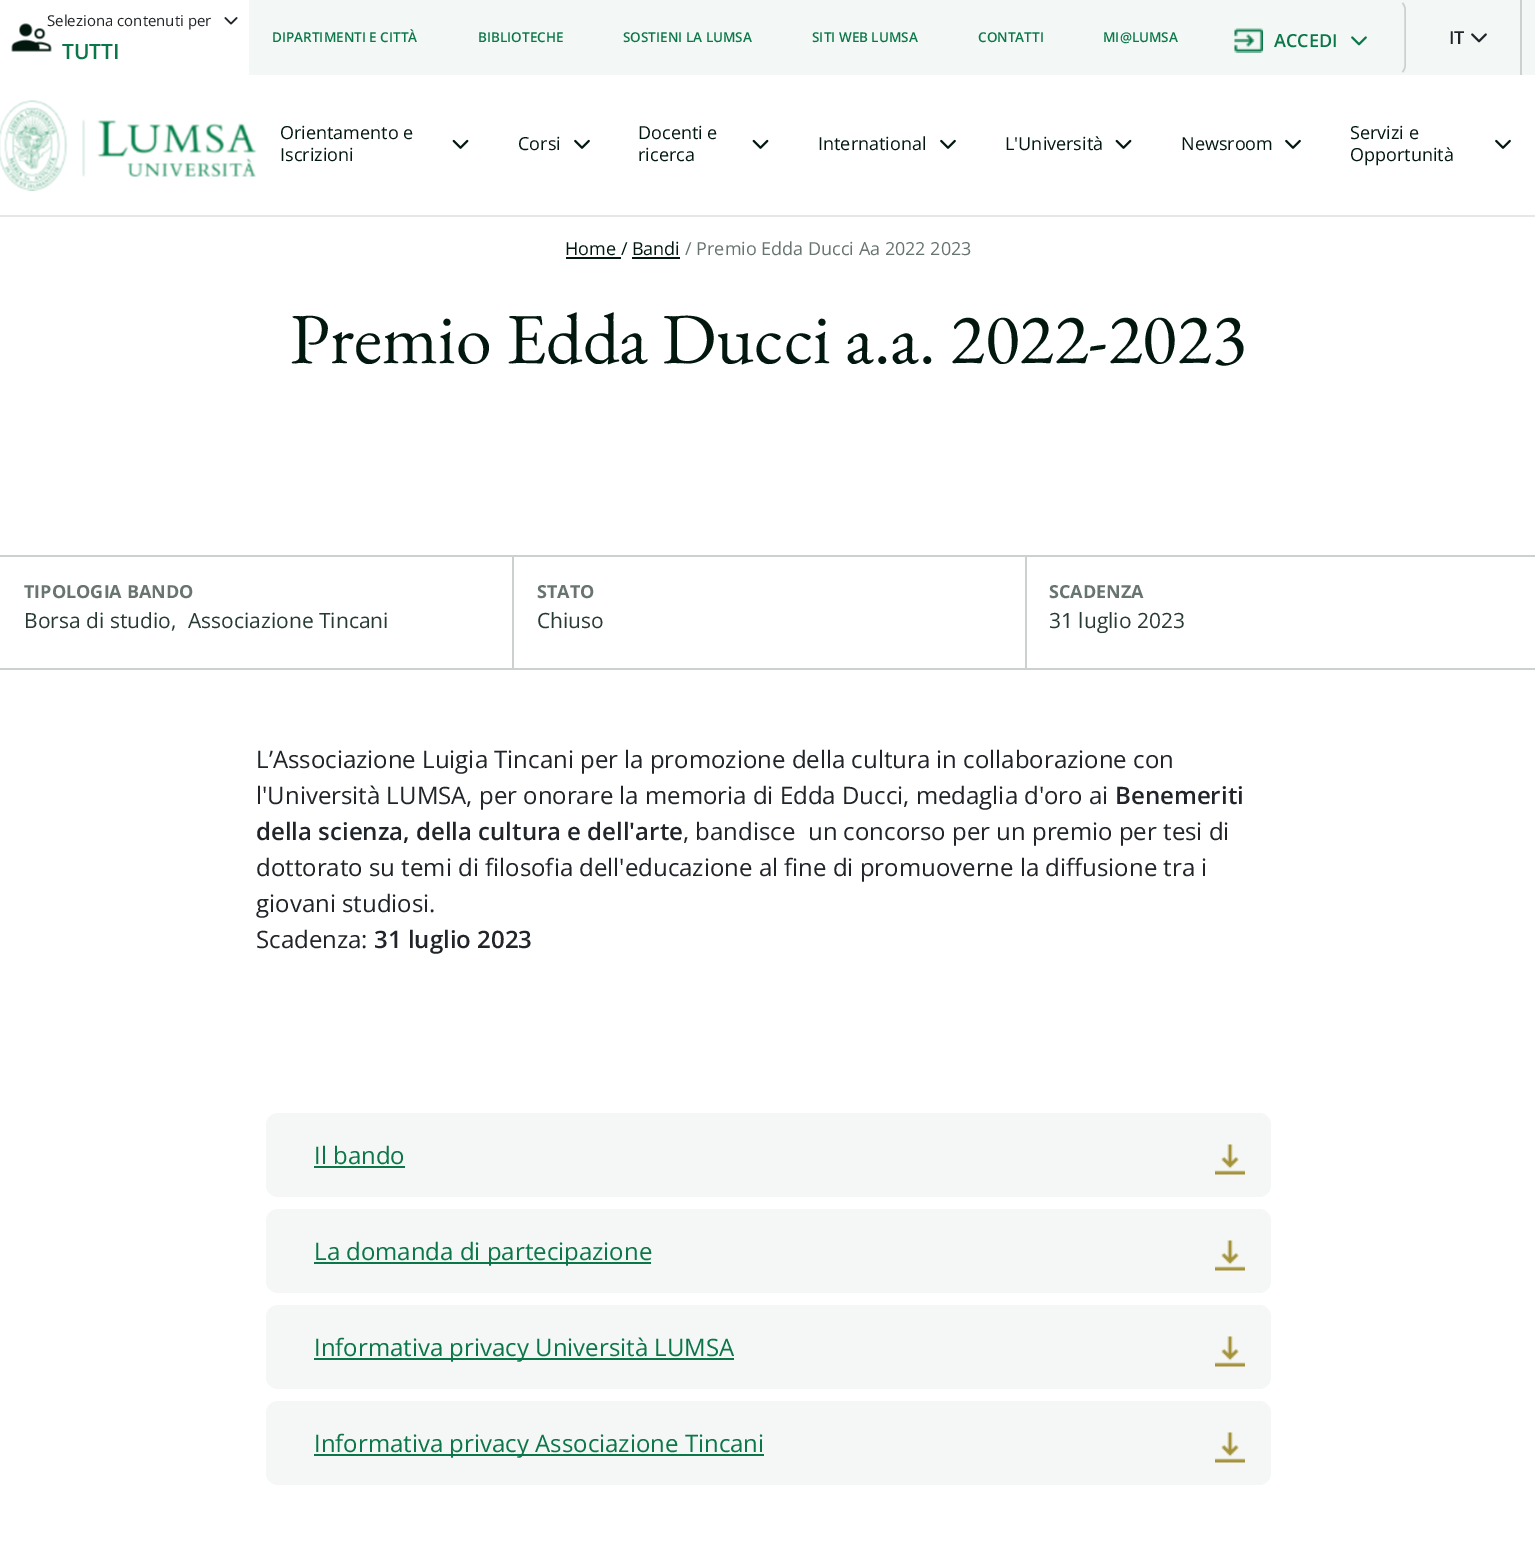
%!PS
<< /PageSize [1535 1549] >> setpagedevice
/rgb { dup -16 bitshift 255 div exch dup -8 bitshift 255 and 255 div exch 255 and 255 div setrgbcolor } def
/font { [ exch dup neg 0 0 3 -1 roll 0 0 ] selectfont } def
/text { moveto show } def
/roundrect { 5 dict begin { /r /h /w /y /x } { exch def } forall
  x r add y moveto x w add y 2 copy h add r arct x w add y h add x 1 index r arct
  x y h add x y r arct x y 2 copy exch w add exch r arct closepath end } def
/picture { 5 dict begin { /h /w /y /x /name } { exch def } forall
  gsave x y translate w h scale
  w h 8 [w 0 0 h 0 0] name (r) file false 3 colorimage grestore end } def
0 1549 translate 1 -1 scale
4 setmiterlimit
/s1 { /OpenSans-Regular 15 font 16#212529 rgb } def
/s2 { /OpenSans-SemiBold 21 font 16#0B7749 rgb } def
/s3 { /OpenSans-SemiBold 13.5 font 16#0B7749 rgb } def
/s4 { /OpenSans-SemiBold 18 font 16#0B7749 rgb } def
/s5 { /OpenSans-SemiBold 18 font 16#212529 rgb } def
/s6 { /OpenSans-Regular 18 font 16#02180F rgb } def
/s7 { /OpenSans-Regular 18 font 16#67746F rgb } def
/s8 { /EBGaramond-Regular 72 font 16#02180F rgb } def
/s9 { /OpenSans-Bold 18 font 16#67746F rgb } def
/s10 { /OpenSans-Regular 21 font 16#283B33 rgb } def
/s11 { /OpenSans-Regular 24 font 16#212529 rgb } def
/s12 { /OpenSans-SemiBold 24 font 16#212529 rgb } def
/s13 { /OpenSans-Regular 24 font 16#0B7749 rgb } def
16#FFFFFF rgb
0 0 1535 1549 rectfill
(pic1.raw) 11 23 41 29 picture
s1
(Seleziona contenuti per) 47 26 text
(pic2.raw) 224 17 14 8 picture
s2
(TUTTI) 62 59 text
16#F3F8F6 rgb
249 0 1286 75 rectfill
s3
(DIPARTIMENTI E CITTÀ) 272 42 text
(BIBLIOTECHE) 478 42 text
(SOSTIENI LA LUMSA) 623 42 text
(SITI WEB LUMSA) 812 42 text
(CONTATTI) 978 42 text
(MI@LUMSA) 1103 42 text
16#CCD1CF rgb
1.5 setlinewidth
1402.5 3 moveto 1404 4.5 1405 7 1405 9 curveto 1405 66 lineto 1405 68 1404 70.5 1402.5 72 curveto stroke
(pic3.raw) 1234 28 29 25 picture
s4
(ACCEDI) 1274 47 text
(pic4.raw) 1351 36 16 10 picture
16#CCD1CF rgb
1520 0 2 75 rectfill
s5
(IT) 1449 44 text
(pic5.raw) 1471 33 16 10 picture
16#E6E8E7 rgb
0 215 1535 2 rectfill
(pic6.raw) 0 100 257 91 picture
s6
(Orientamento e) 280 139 text
(pic7.raw) 452 139 17 10 picture
(Iscrizioni) 280 161 text
(Corsi) 518 150 text
(pic8.raw) 574 139 16 10 picture
(Docenti e) 638 139 text
(pic7.raw) 752 139 17 10 picture
(ricerca) 638 161 text
(International) 818 150 text
(pic8.raw) 940 139 16 10 picture
(L'Università) 1005 150 text
(pic7.raw) 1115 139 17 10 picture
(Newsroom) 1181 150 text
(pic8.raw) 1285 139 16 10 picture
(Servizi e) 1350 139 text
(pic8.raw) 1495 139 16 10 picture
(Opportunità) 1350 161 text
(Home / Bandi) 565 255 text
566 257 55 2 rectfill
s7
(/ Premio Edda Ducci Aa 2022 2023) 685 255 text
16#02180F rgb
632 257 48 2 rectfill
s8
(Premio Edda Ducci a.a. 2022-2023) 290 363 text
16#CCD1CF rgb
0 555 1535 2 rectfill
0 668 1535 2 rectfill
s9
(TIPOLOGIA BANDO) 24 598 text
s10
(Borsa di studio,) 24 628 text
(Associazione Tincani) 188 628 text
16#CCD1CF rgb
512 557 2 112 rectfill
s9
(STATO) 537 598 text
s10
(Chiuso) 537 628 text
16#CCD1CF rgb
1025 557 2 112 rectfill
s9
(SCADENZA) 1049 598 text
s10
(31 luglio 2023) 1049 628 text
s11
(L’Associazione Luigia Tincani per la promozione della cultura in collaborazione con) 256 768 text
(l'Università LUMSA, per onorare la memoria di Edda Ducci, medaglia d'oro ai) 256 804 text
s12
(Benemeriti) 1115 804 text
(della scienza, della cultura e dell'arte) 256 840 text
s11
(, bandisce  un concorso per un premio per tesi di) 683 840 text
(dottorato su temi di filosofia dell'educazione al fine di promuoverne la diffusione tra i) 256 876 text
(giovani studiosi.) 256 912 text
(Scadenza:) 256 948 text
s12
(31 luglio 2023) 374 948 text
16#F5F6F6 rgb
266 1113 1005 84 12 roundrect fill
s13
(Il bando) 314 1164 text
314 1166 91 2 rectfill
(pic9.raw) 1215 1144 30 31 picture
16#F5F6F6 rgb
266 1209 1005 84 12 roundrect fill
16#0B7749 rgb
314 1262 337 2 rectfill
(La domanda di partecipazione) 314 1260 text
(pic9.raw) 1215 1240 30 31 picture
16#F5F6F6 rgb
266 1305 1005 84 12 roundrect fill
16#0B7749 rgb
314 1358 420 2 rectfill
(Informativa privacy Università LUMSA) 314 1356 text
(pic9.raw) 1215 1336 30 31 picture
16#F5F6F6 rgb
266 1401 1005 84 12 roundrect fill
16#0B7749 rgb
314 1454 450 2 rectfill
(Informativa privacy Associazione Tincani) 314 1452 text
(pic9.raw) 1215 1432 30 31 picture
showpage
